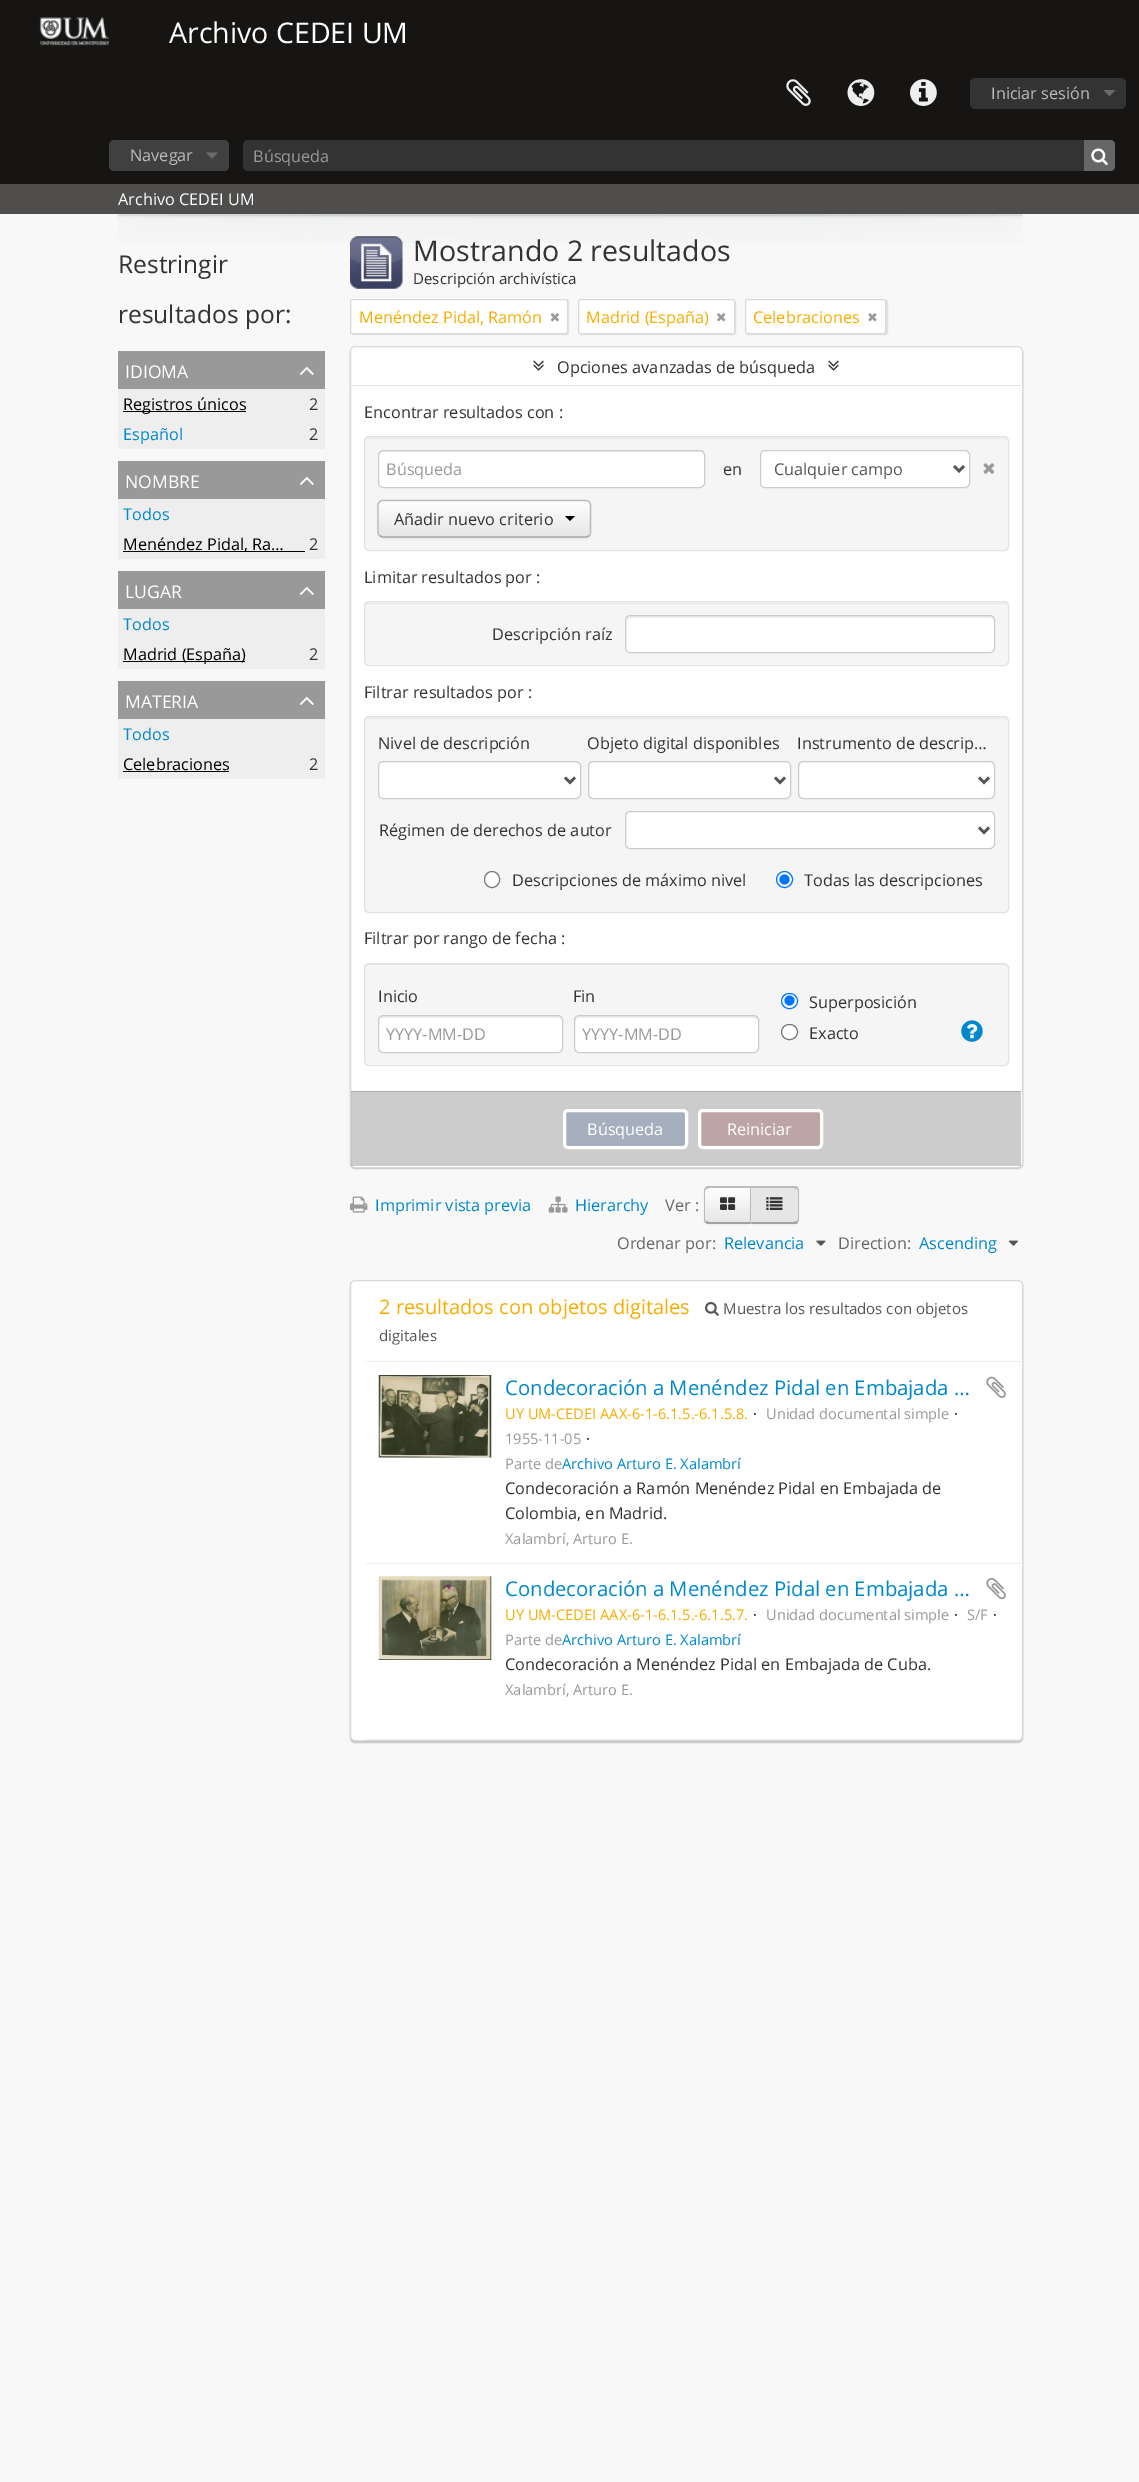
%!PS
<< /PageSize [1139 2482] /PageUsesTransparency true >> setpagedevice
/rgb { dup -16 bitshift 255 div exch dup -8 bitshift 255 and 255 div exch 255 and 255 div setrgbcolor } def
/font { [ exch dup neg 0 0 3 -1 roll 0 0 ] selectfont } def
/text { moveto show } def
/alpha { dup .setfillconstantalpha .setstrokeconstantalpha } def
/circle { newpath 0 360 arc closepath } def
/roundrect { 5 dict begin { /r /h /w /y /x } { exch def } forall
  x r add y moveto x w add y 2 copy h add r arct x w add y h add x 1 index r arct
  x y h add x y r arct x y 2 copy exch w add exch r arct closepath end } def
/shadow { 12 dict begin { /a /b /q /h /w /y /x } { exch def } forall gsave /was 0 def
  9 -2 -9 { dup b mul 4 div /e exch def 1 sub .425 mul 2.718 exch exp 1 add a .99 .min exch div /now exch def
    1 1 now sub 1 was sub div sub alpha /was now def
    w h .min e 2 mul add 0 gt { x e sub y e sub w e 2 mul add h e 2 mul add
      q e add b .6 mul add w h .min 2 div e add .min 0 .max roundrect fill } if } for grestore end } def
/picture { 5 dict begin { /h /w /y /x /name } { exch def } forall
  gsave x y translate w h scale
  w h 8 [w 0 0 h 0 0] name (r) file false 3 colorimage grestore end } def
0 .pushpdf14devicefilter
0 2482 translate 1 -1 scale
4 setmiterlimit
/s1 { /OpenSans-Regular 28.5 font 16#FFFFFF rgb } def
/s2 { /OpenSans-Regular 16.25 font 16#BBBBBB rgb } def
/s3 { /OpenSans-Regular 16.25 font 16#999999 rgb } def
/s4 { /OpenSans-Regular 16.25 font 16#FFFFFF rgb } def
/s5 { /OpenSans-Regular 24.5 font 16#333333 rgb } def
/s6 { /OpenSans-Regular 17.5 font 16#FFFFFF rgb } def
/s7 { /OpenSans-Regular 16.25 font 16#000000 rgb } def
/s8 { /OpenSans-Regular 16.25 font 16#333333 rgb } def
/s9 { /OpenSans-Regular 16.25 font 16#0088CC rgb } def
/s10 { /OpenSans-Regular 28.5 font 16#333333 rgb } def
/s11 { /OpenSans-Regular 15 font 16#333333 rgb } def
/s12 { /OpenSans-Regular 16.25 font 16#F6AC00 rgb } def
/s13 { /OpenSans-Regular 16.25 font 16#555555 rgb } def
/s14 { /OpenSans-Regular 16.25 font 16#666666 rgb } def
/s15 { /OpenSans-Regular 20 font 16#F6AC00 rgb } def
/s16 { /OpenSans-Regular 15 font 16#555555 rgb } def
/s17 { /OpenSans-Regular 20.3 font 16#0088CC rgb } def
/s18 { /OpenSans-Regular 14.6 font 16#F6AC00 rgb } def
/s19 { /OpenSans-Regular 14.6 font 16#000000 rgb } def
/s20 { /OpenSans-Regular 14.6 font 16#999999 rgb } def
/s21 { /OpenSans-Regular 14.6 font 16#0088CC rgb } def
16#F8F8F8 rgb
0 0 1139 2482 rectfill
16#161514 rgb
0 0 1139 184 rectfill
(pic1.raw) 39 17 70 29 picture
s1
(Archivo CEDEI UM) 169 43 text
(pic2.raw) 786 79 25 27 picture
(pic3.raw) 847 79 28 27 picture
(pic4.raw) 910 79 27 27 picture
16#333333 rgb
970 78 156 31 5 roundrect fill
(pic5.raw) 1103 90 13 7 picture
s2
(Iniciar sesión) 991 99 text
16#404040 rgb
109 140 120 31 5 roundrect fill
(pic6.raw) 206 152 12 7 picture
s2
(Navegar) 130 161 text
16#333333 rgb
243 140 872 31 5 roundrect fill
0.07 alpha
16#000000 rgb
248 141 moveto 1110 141 lineto 1113 141 1115 143 1115 146 curveto 1115 145 lineto 1115 142 1113 140 1110 140 curveto 248 140 lineto 246 140 244 141 244 143 curveto 245 142 246 141 248 141 curveto closepath fill
1 alpha
s3
(Búsqueda) 253 162 text
16#666666 rgb
1084 140 moveto 1110 140 lineto 1113 140 1115 142 1115 145 curveto 1115 166 lineto 1115 169 1113 171 1110 171 curveto 1084 171 lineto closepath fill
(pic7.raw) 1091 148 17 17 picture
(pic8.raw) 117 213 906 30 picture
0.75 alpha
16#161514 rgb
0 184 1139 30 rectfill
1 alpha
s4
(Archivo CEDEI UM) 118 205 text
s5
(Restringir) 118 273 text
(resultados por:) 118 323 text
16#999999 rgb
118 351 207 38 rectfill
s6
(IDIOMA) 125 378 text
(pic9.raw) 299 367 15 8 picture
16#EEEEEE rgb
118 389 207 60 rectfill
16#000000 rgb
123 411 123 1 rectfill
s7
(Registros únicos) 123 410 text
s8
(2) 309 410 text
s9
(Español) 123 440 text
s8
(2) 309 440 text
16#999999 rgb
118 461 207 38 rectfill
s6
(NOMBRE) 125 488 text
(pic9.raw) 299 477 15 8 picture
16#EEEEEE rgb
118 499 207 60 rectfill
s9
(Todos) 123 520 text
16#000000 rgb
123 551 182 1 rectfill
(Menéndez Pidal, Ra…) 123 550 text
s8
(2) 309 550 text
16#999999 rgb
118 571 207 38 rectfill
s6
(LUGAR) 125 598 text
(pic9.raw) 299 587 15 8 picture
16#EEEEEE rgb
118 609 207 60 rectfill
s9
(Todos) 123 630 text
16#000000 rgb
123 661 122 1 rectfill
(Madrid \(España\)) 123 660 text
s8
(2) 309 660 text
16#999999 rgb
118 681 207 38 rectfill
s6
(MATERIA) 125 708 text
(pic9.raw) 299 697 15 8 picture
16#EEEEEE rgb
118 719 207 60 rectfill
s9
(Todos) 123 740 text
s7
(Celebraciones) 123 770 text
123 771 106 1 rectfill
s8
(2) 309 770 text
(pic10.raw) 350 236 53 53 picture
s10
(Mostrando 2 resultados) 413 261 text
s11
(Descripción archivística) 413 284 text
16#000000 rgb
351 300 218 35 2.5 0.5 0.1 shadow
16#FFFFFF rgb
350.5 299.5 217 34 2 roundrect gsave fill grestore
16#D9D9D9 rgb
stroke
s12
(Menéndez Pidal, Ramón) 359 323 text
(pic11.raw) 550 313 9 9 picture
16#000000 rgb
579 300 157 35 2.5 0.5 0.1 shadow
16#FFFFFF rgb
578.5 299.5 156 34 2 roundrect gsave fill grestore
16#D9D9D9 rgb
stroke
s12
(Madrid \(España\)) 586 323 text
(pic12.raw) 717 313 9 9 picture
16#000000 rgb
746 300 142 35 2.5 0.5 0.1 shadow
16#FFFFFF rgb
745.5 299.5 140 34 2 roundrect gsave fill grestore
16#D9D9D9 rgb
stroke
s12
(Celebraciones) 753 323 text
(pic13.raw) 868 313 9 9 picture
16#000000 rgb
350 348 673 821 5 0.5 0.2 shadow
16#FFFFFF rgb
350.5 346.5 672 821 4.5 roundrect gsave fill grestore
16#D9D9D9 rgb
stroke
(pic14.raw) 533 360 11 11 picture
s8
(Opciones avanzadas de búsqueda) 557 373 text
(pic14.raw) 828 360 11 11 picture
16#E3E3E3 rgb
351 385 670 1 rectfill
s8
(Encontrar resultados con :) 364 418 text
16#F5F5F5 rgb
364 436 645 115 5 roundrect fill
16#E9E9E9 rgb
369 439 moveto 1004 439 lineto 1006 439 1008 440 1008 442 curveto 1008 440 1006 438 1004 438 curveto 369 438 lineto 367 438 365 440 365 442 curveto 365 440 367 439 369 439 curveto closepath fill
16#E3E3E3 rgb
364.5 436.5 644 114 4.5 roundrect stroke
16#FFFFFF rgb
378 450 327 38 5 roundrect fill
16#ECECEC rgb
382 452 moveto 700 452 lineto 702 452 704 454 704 456 curveto 704 455 lineto 704 453 702 451 700 451 curveto 383 451 lineto 381 451 379 453 379 455 curveto 379 456 lineto 379 454 380 452 382 452 curveto closepath fill
16#CCCCCC rgb
378.5 450.5 326 37 4.5 roundrect stroke
s3
(Búsqueda) 386 475 text
s8
(en) 723 475 text
16#FFFFFF rgb
760.5 450.5 209 37 4.5 roundrect gsave fill grestore
16#CCCCCC rgb
stroke
16#555555 rgb
2.5 setlinewidth
954 466 moveto 959 471 lineto 964 466 lineto stroke
(Cualquier campo) 774 475 text
(pic15.raw) 983 463 12 11 picture
16#000000 rgb
378 501 213 38 5 1 0.05 shadow
16#F5F5F5 rgb
378 500 213 38 5 roundrect fill
gsave
378 500 213 38 5 roundrect clip newpath
gsave 378 501 moveto 591 501 lineto 591 536 lineto 378 536 lineto closepath clip newpath
<< /ShadingType 2 /ColorSpace /DeviceRGB /Coords [484 501 484 536] /Extend [true true] /Function << /FunctionType 2 /Domain [0 1] /C0 [1 1 1] /C1 [0.902 0.902 0.902] /N 1 >> >> shfill grestore
grestore
16#A2A2A2 rgb
1.2 setlinewidth
589.5 535.5 moveto 586.5 537 lineto 416.5 537 lineto 382.5 537 lineto 379.5 535.5 lineto stroke
16#BBBBBB rgb
379.5 535.5 moveto 378.5 535 378 533.5 378 532.5 curveto 378 505 lineto 378 504 378.5 502.5 379.5 502 curveto 380 501 381.5 500.5 382.5 500.5 curveto 586 500.5 lineto 587.5 500.5 588.5 501 589.5 502 curveto 590 502.5 590.5 504 590.5 505 curveto 590.5 532.5 lineto 590.5 533.5 590 535 589.5 535.5 curveto stroke
s8
(Añadir nuevo criterio) 394 525 text
16#000000 rgb
565 516 moveto 575 516 lineto 570 521 lineto closepath fill
s8
(Limitar resultados por :) 364 583 text
16#F5F5F5 rgb
364 601 645 65 5 roundrect fill
16#E9E9E9 rgb
369 604 moveto 1004 604 lineto 1006 604 1008 605 1008 608 curveto 1008 605 1007 603 1004 603 curveto 369 603 lineto 366 603 365 605 365 608 curveto 365 605 367 604 369 604 curveto closepath fill
16#E3E3E3 rgb
1 setlinewidth
364.5 601.5 644 64 4.5 roundrect stroke
s8
(Descripción raíz) 492 640 text
16#FFFFFF rgb
625 615 370 38 5 roundrect fill
16#ECECEC rgb
630 618 moveto 990 618 lineto 992 618 994 619 994 621 curveto 994 618 993 616 990 616 curveto 630 616 lineto 627 616 626 618 626 621 curveto 626 619 628 618 630 618 curveto closepath fill
16#CCCCCC rgb
625.5 615.5 369 37 4.5 roundrect stroke
s8
(Filtrar resultados por :) 364 698 text
16#F5F5F5 rgb
364 716 645 197 5 roundrect fill
16#E9E9E9 rgb
369 719 moveto 1004 719 lineto 1006 719 1008 720 1008 722 curveto 1008 720 1006 718 1004 718 curveto 369 718 lineto 367 718 365 720 365 722 curveto 365 720 367 719 369 719 curveto closepath fill
16#E3E3E3 rgb
364.5 716.5 644 196 4.5 roundrect stroke
s8
(Nivel de descripción) 378 749 text
16#FFFFFF rgb
378.5 761.5 202 37 4.5 roundrect gsave fill grestore
16#CCCCCC rgb
stroke
16#555555 rgb
2.5 setlinewidth
565 777.5 moveto 570 782.5 lineto 575 777.5 lineto stroke
s8
(Objeto digital disponibles) 587 749 text
16#FFFFFF rgb
588.5 761.5 202 37 4.5 roundrect gsave fill grestore
16#CCCCCC rgb
1 setlinewidth
stroke
16#555555 rgb
2.5 setlinewidth
775 777.5 moveto 780 782.5 lineto 785 777.5 lineto stroke
s8
(Instrumento de descrip…) 797 749 text
16#FFFFFF rgb
798.5 761.5 196 37 4.5 roundrect gsave fill grestore
16#CCCCCC rgb
1 setlinewidth
stroke
16#555555 rgb
2.5 setlinewidth
979 777.5 moveto 984 782.5 lineto 989 777.5 lineto stroke
s8
(Régimen de derechos de autor) 379 836 text
16#FFFFFF rgb
625.5 811.5 369 37 4.5 roundrect gsave fill grestore
16#CCCCCC rgb
1 setlinewidth
stroke
16#555555 rgb
2.5 setlinewidth
979 827.5 moveto 984 832.5 lineto 989 827.5 lineto stroke
16#FFFFFF rgb
484.5 871.5 15 16 7.5 roundrect gsave fill grestore
16#767676 rgb
1 setlinewidth
stroke
s8
(Descripciones de máximo nivel) 512 886 text
16#FFFFFF rgb
784.5 879.5 8 circle gsave fill grestore
16#0075FF rgb
stroke
784.5 879.5 5 circle fill
s8
(Todas las descripciones) 804 886 text
(Filtrar por rango de fecha :) 364 944 text
16#F5F5F5 rgb
364 963 645 103 5 roundrect fill
16#E9E9E9 rgb
369 965 moveto 1004 965 lineto 1006 965 1008 967 1008 969 curveto 1008 966 1007 964 1004 964 curveto 369 964 lineto 366 964 365 966 365 969 curveto 365 967 367 965 369 965 curveto closepath fill
16#E3E3E3 rgb
364.5 963.5 644 102 4.5 roundrect stroke
s8
(Inicio) 378 1002 text
16#FFFFFF rgb
378 1015 185 38 5 roundrect fill
16#ECECEC rgb
382 1018 moveto 559 1018 lineto 560 1019 lineto 561 1021 lineto 561 1020 lineto 561 1018 559 1016 557 1016 curveto 383 1016 lineto 381 1016 379 1018 379 1020 curveto 379 1021 lineto 379 1019 380 1018 382 1018 curveto closepath fill
16#CCCCCC rgb
378.5 1015.5 184 37 4.5 roundrect stroke
s3
(YYYY-MM-DD) 386 1040 text
s8
(Fin) 573 1002 text
16#FFFFFF rgb
574 1015 185 38 5 roundrect fill
16#ECECEC rgb
579 1018 moveto 754 1018 lineto 756 1018 758 1019 758 1021 curveto 758 1020 lineto 758 1018 756 1016 754 1016 curveto 579 1016 lineto 577 1016 575 1018 575 1020 curveto 575 1021 lineto 575 1019 577 1018 579 1018 curveto closepath fill
16#CCCCCC rgb
574.5 1015.5 184 37 4.5 roundrect stroke
s3
(YYYY-MM-DD) 582 1040 text
16#FFFFFF rgb
781.5 993.5 16 15 7.5 roundrect gsave fill grestore
16#0075FF rgb
stroke
789.5 1000.5 5 circle fill
s8
(Superposición) 809 1008 text
16#FFFFFF rgb
781.5 1024.5 16 15 7.5 roundrect gsave fill grestore
16#767676 rgb
stroke
s8
(Exacto) 809 1039 text
(pic16.raw) 961 1020 22 22 picture
0.2 alpha
16#000000 rgb
351 1092 670 74 rectfill
1 alpha
16#ADADAD rgb
351 1091 670 1 rectfill
16#A5AFBE rgb
564.5 1110.5 122 37 3.5 roundrect gsave fill grestore
16#FFFFFF rgb
3 setlinewidth
stroke
(Búsqueda) 587 1135 text
16#BEA5A5 rgb
699.5 1110.5 122 37 3.5 roundrect gsave fill grestore
16#FFFFFF rgb
stroke
(Reiniciar) 727 1135 text
(pic17.raw) 350 1196 18 17 picture
s9
(Imprimir vista previa) 375 1211 text
(pic18.raw) 548 1196 20 17 picture
(Hierarchy) 575 1211 text
s14
(Ver :) 665 1211 text
16#000000 rgb
704 1188 47 37 5 1 0.05 shadow
gsave
709 1186 moveto 751 1186 lineto 751 1224 lineto 709 1224 lineto 706 1224 704 1222 704 1219 curveto 704 1191 lineto 704 1188 706 1186 709 1186 curveto closepath clip newpath
gsave 704 1188 moveto 750 1188 lineto 750 1223 lineto 704 1223 lineto closepath clip newpath
<< /ShadingType 2 /ColorSpace /DeviceRGB /Coords [728 1188 728 1223] /Extend [true true] /Function << /FunctionType 2 /Domain [0 1] /C0 [1 1 1] /C1 [0.902 0.902 0.902] /N 1 >> >> shfill grestore
grestore
16#BBBBBB rgb
709 1188 moveto 706 1189 lineto 705 1188 lineto 707 1186 lineto 751 1186 lineto 750 1188 lineto closepath fill
16#A2A2A2 rgb
707 1224 moveto 705 1222 lineto 706 1221 lineto 709 1222 lineto 750 1222 lineto 751 1224 lineto closepath fill
16#BBBBBB rgb
705 1222.5 moveto 704.5 1221.5 704 1220.5 704 1219 curveto 704 1191 lineto 704 1189.5 704.5 1188.5 705 1187.5 curveto 706 1189 lineto 705.5 1189 705 1190 705 1191 curveto 705 1219 lineto 705 1220 705.5 1221 706 1221 curveto closepath fill
(pic19.raw) 720 1197 16 13 picture
16#000000 rgb
750 1188 49 37 5 1 0.05 shadow
16#E6E6E6 rgb
750 1186 moveto 794 1186 lineto 797 1186 799 1188 799 1191 curveto 799 1219 lineto 799 1222 797 1224 794 1224 curveto 750 1224 lineto closepath fill
16#BBBBBB rgb
750 1186 moveto 796 1186 lineto 798 1187 lineto 796 1189 lineto 794 1188 lineto 752 1188 lineto closepath fill
799 1220.5 moveto 797.5 1222.5 lineto 796.5 1221.5 lineto 797.5 1221 798 1220 798 1219 curveto 798 1191 lineto 798 1190 797.5 1189 796.5 1188.5 curveto 797.5 1187.5 lineto 799 1189.5 lineto closepath fill
16#A2A2A2 rgb
796 1224 moveto 750 1224 lineto 752 1222 lineto 794 1222 lineto 796 1221 lineto 798 1223 lineto closepath fill
16#BBBBBB rgb
751 1188 moveto 752 1188 lineto 750 1186 lineto 750 1224 lineto 752 1222 lineto 751 1222 lineto closepath fill
(pic20.raw) 766 1197 17 13 picture
s14
(Ordenar por:) 617 1249 text
s9
(Relevancia) 724 1249 text
(pic21.raw) 816 1240 10 6 picture
s14
(Direction:) 838 1249 text
s9
(Ascending) 919 1249 text
(pic22.raw) 1008 1240 10 6 picture
16#000000 rgb
350 1281 673 462 5 0.5 0.2 shadow
16#FFFFFF rgb
350.5 1280.5 672 460 4.5 roundrect gsave fill grestore
16#D9D9D9 rgb
1 setlinewidth
stroke
16#EEEEEE rgb
366 1361 655 1 rectfill
s15
(2 resultados con objetos digitales) 379 1314 text
(pic23.raw) 705 1302 14 14 picture
s16
(Muestra los resultados con objetos) 723 1314 text
(digitales) 379 1341 text
16#EEEEEE rgb
366 1563 655 1 rectfill
(pic24.raw) 378 1375 114 83 picture
s17
(Condecoración a Menéndez Pidal en Embajada …) 505 1395 text
(pic25.raw) 986 1376 20 22 picture
s18
(UY UM-CEDEI AAX-6-1-6.1.5.-6.1.5.8.) 505 1419 text
s19
(·) 753 1419 text
s20
(Unidad documental simple) 766 1419 text
s19
(·) 954 1419 text
s20
(1955-11-05) 505 1444 text
s19
(·) 586 1444 text
s20
(Parte de) 505 1469 text
s21
(Archivo Arturo E. Xalambrí) 562 1469 text
s8
(Condecoración a Ramón Menéndez Pidal en Embajada de) 505 1494 text
(Colombia, en Madrid.) 505 1519 text
s20
(Xalambrí, Arturo E.) 505 1544 text
16#EEEEEE rgb
366 1739 655 1 rectfill
(pic26.raw) 378 1576 114 84 picture
s17
(Condecoración a Menéndez Pidal en Embajada …) 505 1596 text
(pic27.raw) 986 1577 20 23 picture
s18
(UY UM-CEDEI AAX-6-1-6.1.5.-6.1.5.7.) 505 1620 text
s19
(·) 753 1620 text
s20
(Unidad documental simple) 766 1620 text
s19
(·) 954 1620 text
s20
(S/F) 967 1620 text
s19
(·) 993 1620 text
s20
(Parte de) 505 1645 text
s21
(Archivo Arturo E. Xalambrí) 562 1645 text
s8
(Condecoración a Menéndez Pidal en Embajada de Cuba.) 505 1670 text
s20
(Xalambrí, Arturo E.) 505 1695 text
.poppdf14devicefilter showpage
